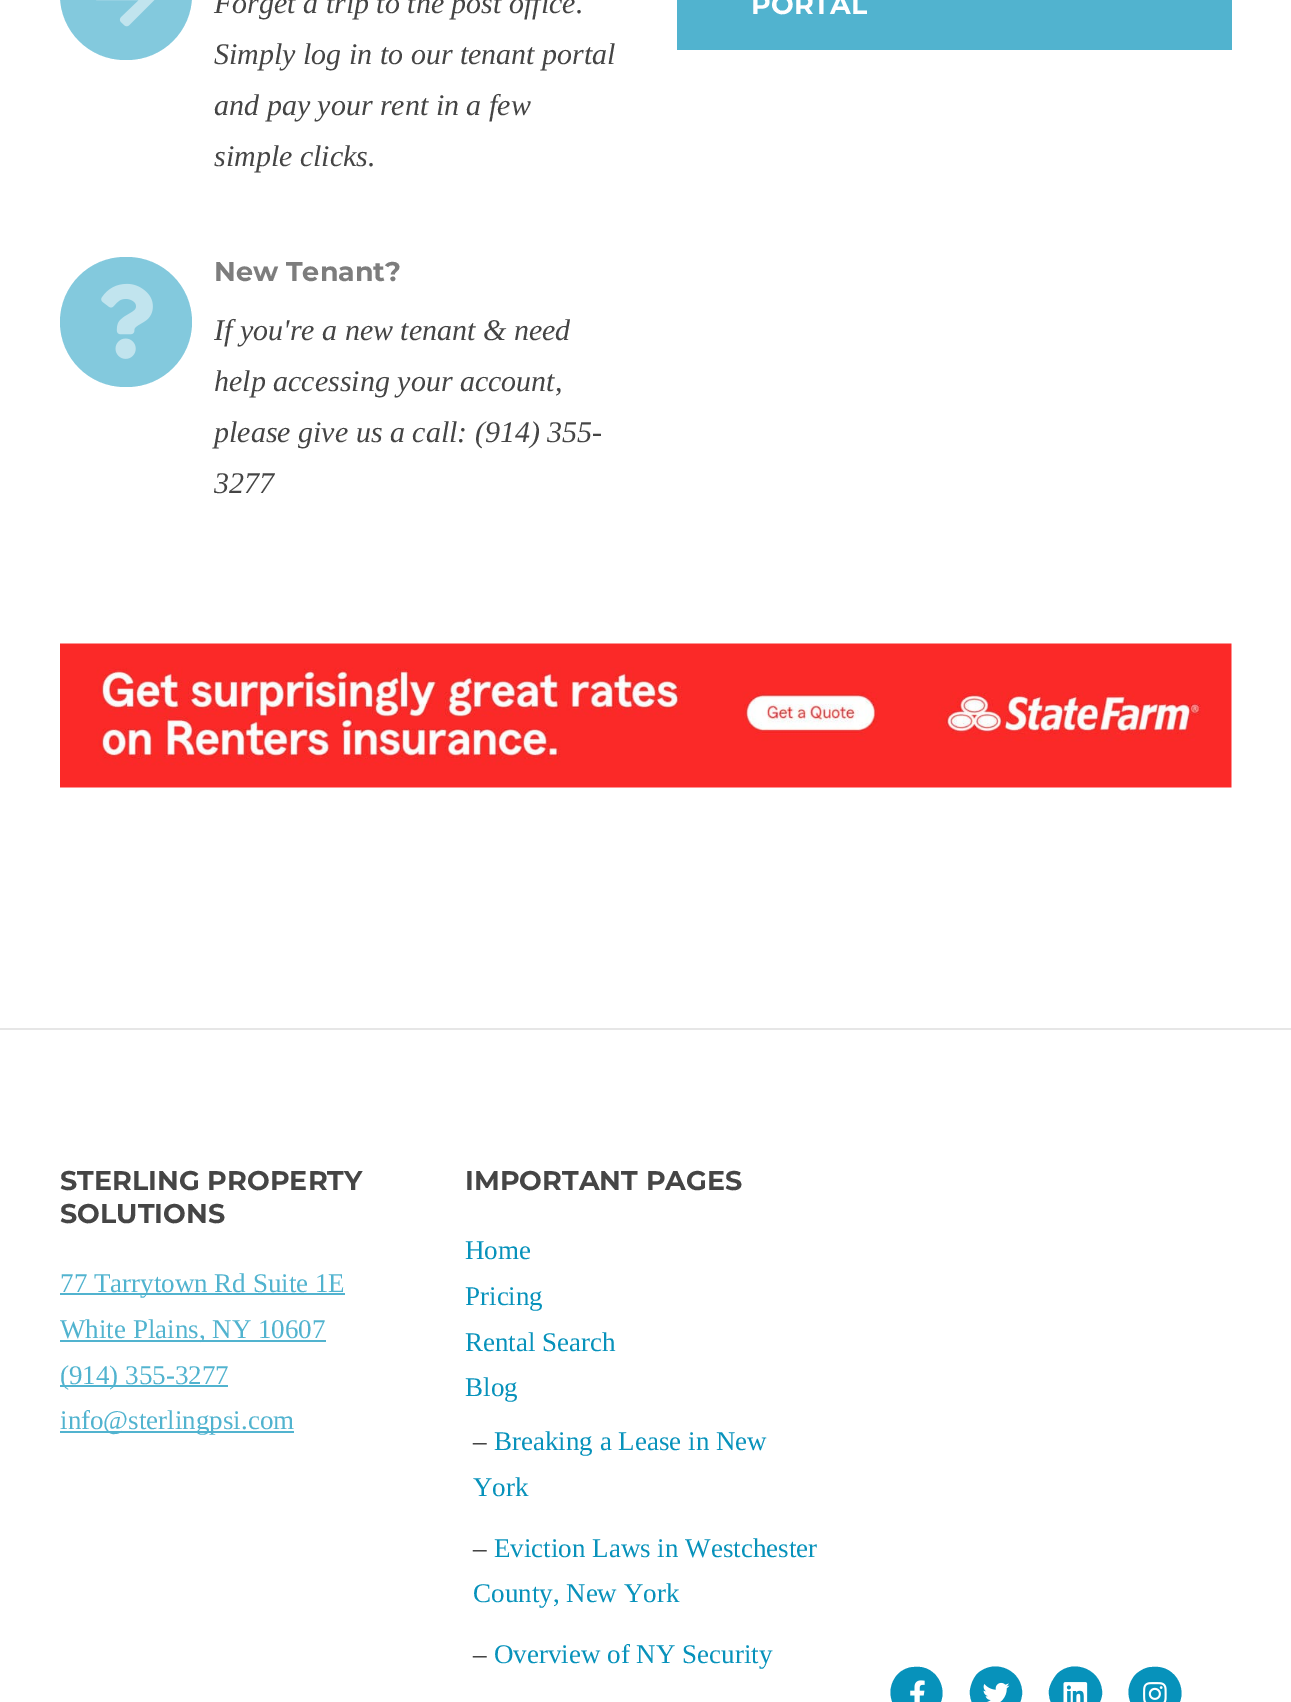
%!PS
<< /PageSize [1291 1702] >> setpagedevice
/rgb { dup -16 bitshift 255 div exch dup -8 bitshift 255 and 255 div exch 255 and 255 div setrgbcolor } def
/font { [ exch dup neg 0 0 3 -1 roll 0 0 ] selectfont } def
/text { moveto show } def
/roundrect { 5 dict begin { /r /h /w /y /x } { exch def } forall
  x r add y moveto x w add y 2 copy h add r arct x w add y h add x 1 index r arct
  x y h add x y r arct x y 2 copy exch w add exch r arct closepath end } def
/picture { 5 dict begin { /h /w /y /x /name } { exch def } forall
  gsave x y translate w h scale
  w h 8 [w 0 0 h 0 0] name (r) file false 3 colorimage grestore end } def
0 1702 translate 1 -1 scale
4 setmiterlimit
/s1 { /Tinos-Italic 30 font 16#454545 rgb } def
/s2 { /Montserrat-Bold 27 font 16#7D7D7D rgb } def
/s3 { /Montserrat-Bold 27 font 16#FFFFFF rgb } def
/s4 { /Montserrat-Bold 27 font 16#454545 rgb } def
/s5 { /Tinos-Regular 27 font 16#51B3CF rgb } def
/s6 { /Tinos-Regular 27 font 16#0792BB rgb } def
/s7 { /Tinos-Regular 27 font 16#454545 rgb } def
16#FFFFFF rgb
0 0 1291 1702 rectfill
16#83C9DD rgb
60 -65 132 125 65 roundrect fill
(pic1.raw) 96 0 59 27 picture
s1
(Forget a trip to the post office.) 214 13 text
(Simply log in to our tenant portal) 214 64 text
(and pay your rent in a few) 214 115 text
(simple clicks.) 214 166 text
16#83C9DD rgb
60 257 132 130 65 roundrect fill
(pic2.raw) 101 283 52 76 picture
s2
(New Tenant?) 214 281 text
s1
(If you're a new tenant & need) 214 340 text
(help accessing your account,) 214 391 text
(please give us a call: \(914\) 355-) 214 442 text
(3277) 214 493 text
16#51B3CF rgb
677 0 555 50 rectfill
s3
(PORTAL) 751 14 text
(pic3.raw) 60 643 1172 145 picture
16#E6E6E6 rgb
0 1028 1291 2 rectfill
s4
(STERLING PROPERTY) 60 1190 text
(SOLUTIONS) 60 1223 text
16#51B3CF rgb
60 1293 285 2 rectfill
s5
(77 Tarrytown Rd Suite 1E) 60 1292 text
60 1340 266 2 rectfill
(White Plains, NY 10607) 60 1338 text
60 1385 168 2 rectfill
(\(914\) 355-3277) 60 1384 text
60 1431 234 2 rectfill
(info@sterlingpsi.com) 60 1429 text
s4
(IMPORTANT PAGES) 465 1190 text
s6
(Home) 465 1259 text
(Pricing) 465 1305 text
(Rental Search) 465 1351 text
(Blog) 465 1396 text
s7
(–) 473 1450 text
s6
(Breaking a Lease in New) 494 1450 text
(York) 473 1496 text
s7
(–) 473 1557 text
s6
(Eviction Laws in Westchester) 494 1557 text
(County, New York) 473 1602 text
s7
(–) 473 1663 text
s6
(Overview of NY Security) 494 1663 text
898 1674 moveto 902 1670 908 1667 914 1667 curveto 938 1664 952 1694 935 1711 curveto 931 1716 925 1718 919 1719 curveto 895 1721 881 1692 898 1674 curveto closepath fill
(pic4.raw) 910 1680 15 22 picture
977 1674 moveto 995 1657 1024 1671 1022 1695 curveto 1021 1701 1019 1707 1015 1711 curveto 997 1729 968 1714 970 1690 curveto 971 1684 973 1679 977 1674 curveto closepath fill
(pic5.raw) 983 1682 27 20 picture
1057 1674 moveto 1074 1657 1104 1671 1102 1695 curveto 1101 1701 1098 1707 1094 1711 curveto 1077 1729 1047 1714 1049 1690 curveto 1050 1684 1053 1679 1057 1674 curveto closepath fill
(pic6.raw) 1063 1682 25 20 picture
1136 1674 moveto 1141 1670 1146 1667 1152 1667 curveto 1177 1664 1191 1694 1174 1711 curveto 1169 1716 1164 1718 1158 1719 curveto 1133 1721 1119 1692 1136 1674 curveto closepath fill
(pic7.raw) 1143 1682 24 20 picture
showpage
